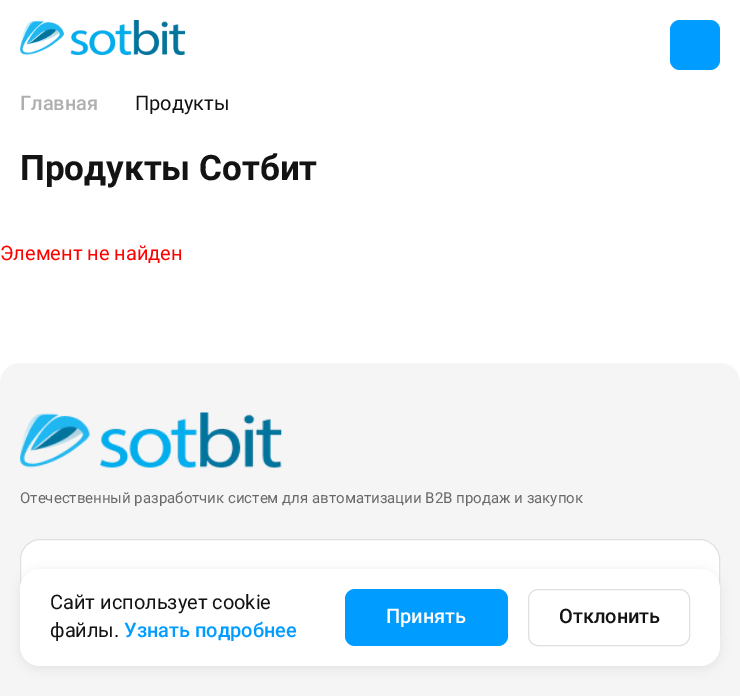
%!PS
<< /PageSize [740 696] /PageUsesTransparency true >> setpagedevice
/rgb { dup -16 bitshift 255 div exch dup -8 bitshift 255 and 255 div exch 255 and 255 div setrgbcolor } def
/font { [ exch dup neg 0 0 3 -1 roll 0 0 ] selectfont } def
/text { moveto show } def
/alpha { dup .setfillconstantalpha .setstrokeconstantalpha } def
/roundrect { 5 dict begin { /r /h /w /y /x } { exch def } forall
  x r add y moveto x w add y 2 copy h add r arct x w add y h add x 1 index r arct
  x y h add x y r arct x y 2 copy exch w add exch r arct closepath end } def
/shadow { 12 dict begin { /a /b /q /h /w /y /x } { exch def } forall gsave /was 0 def
  9 -2 -9 { dup b mul 4 div /e exch def 1 sub .425 mul 2.718 exch exp 1 add a .99 .min exch div /now exch def
    1 1 now sub 1 was sub div sub alpha /was now def
    w h .min e 2 mul add 0 gt { x e sub y e sub w e 2 mul add h e 2 mul add
      q e add b .6 mul add w h .min 2 div e add .min 0 .max roundrect fill } if } for grestore end } def
/picture { 5 dict begin { /h /w /y /x /name } { exch def } forall
  gsave x y translate w h scale
  w h 8 [w 0 0 h 0 0] name (r) file false 3 colorimage grestore end } def
0 .pushpdf14devicefilter
0 696 translate 1 -1 scale
4 setmiterlimit
/s1 { /Roboto-Medium 20 font 16#AFAFAF rgb } def
/s2 { /Roboto-Regular 20 font 16#131313 rgb } def
/s3 { /Roboto-Bold 35 font 16#131313 rgb } def
/s4 { /Roboto-Regular 20 font 16#FF0000 rgb } def
/s5 { /Roboto-Regular 15 font 16#68696A rgb } def
/s6 { /Roboto-Medium 20 font 16#009CFF rgb } def
/s7 { /Roboto-Medium 20 font 16#FFFFFF rgb } def
/s8 { /Roboto-Medium 20 font 16#131313 rgb } def
16#FFFFFF rgb
0 0 740 696 rectfill
(pic1.raw) 20 20 165 35 picture
16#009CFF rgb
670 20 50 50 10 roundrect fill
s1
(Главная) 20 110 text
s2
(Продукты) 135 110 text
s3
(Продукты Сотбит) 20 180 text
s4
(Элемент не найден) 0 260 text
16#F5F5F5 rgb
0 363 740 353 20 roundrect fill
(pic2.raw) 20 412 262 56 picture
s5
(Отечественный разработчик систем для автоматизации B2B продаж и закупок) 20 503 text
16#FFFFFF rgb
20.5 539.5 699 114 19.5 roundrect gsave fill grestore
16#DEE0E1 rgb
stroke
16#D5D5D5 rgb
20 571 700 98 20 5 0.56 shadow
16#FFFFFF rgb
20 569 700 97 20 roundrect fill
s2
(Сайт использует cookie) 50 609 text
(файлы.) 50 637 text
s6
(Узнать подробнее) 124 637 text
345 589 163 57 10 roundrect fill
s7
(Принять) 386 623 text
16#DEE0E1 rgb
528.5 589.5 161 56 9.5 roundrect stroke
s8
(Отклонить) 559 623 text
.poppdf14devicefilter showpage
